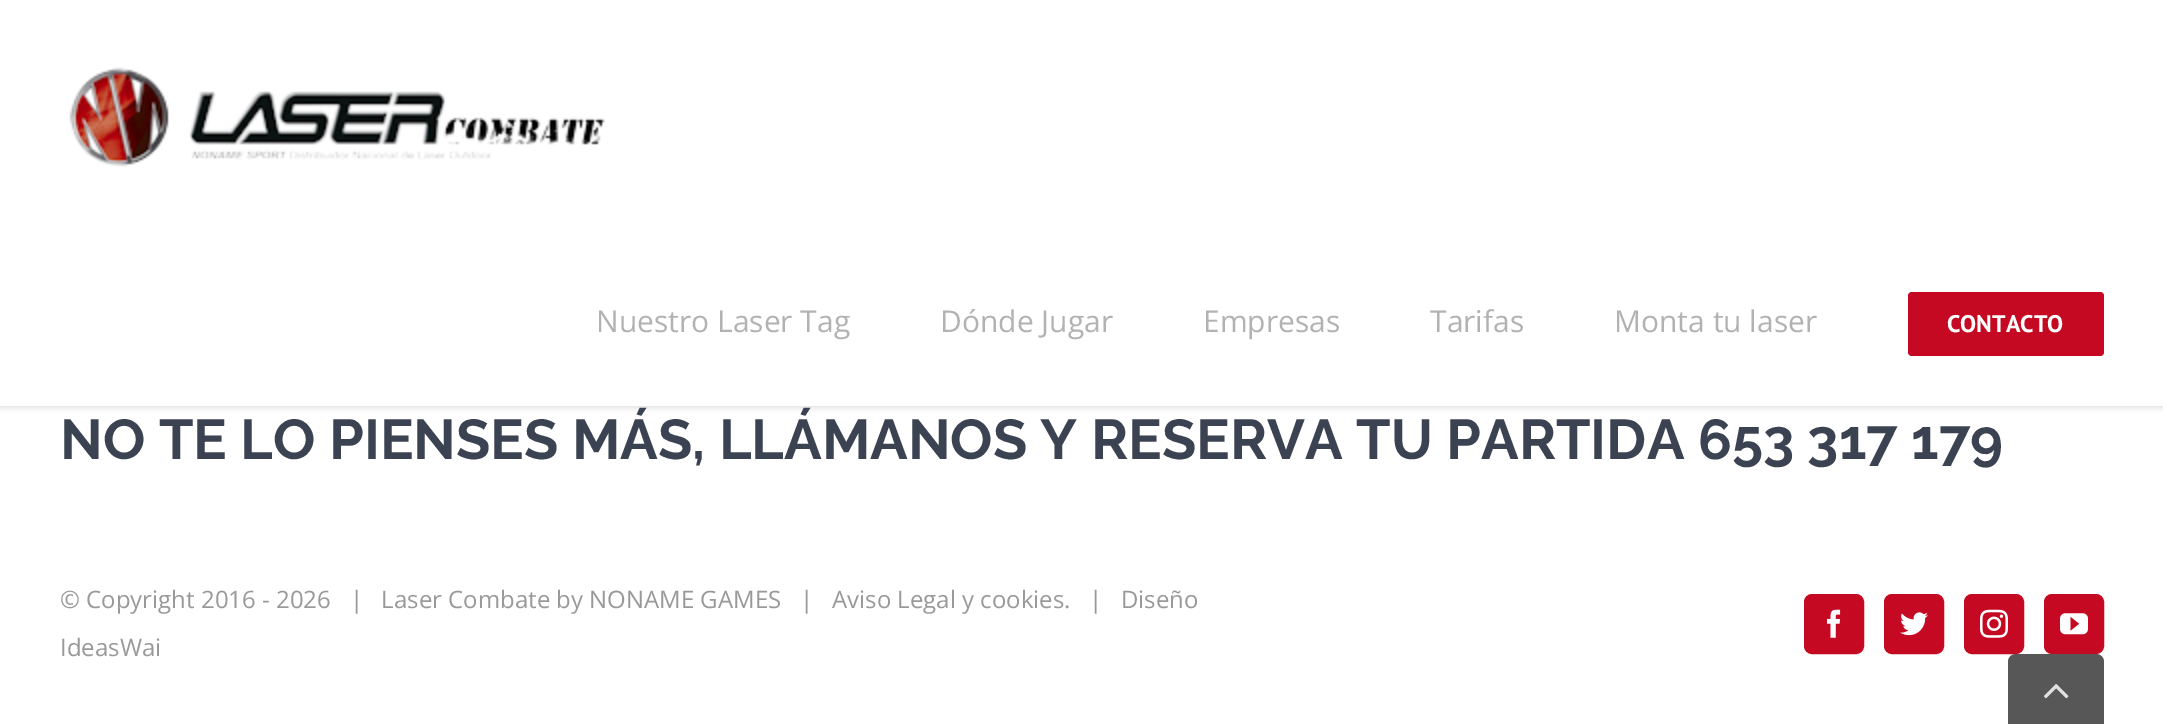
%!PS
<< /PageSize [2163 724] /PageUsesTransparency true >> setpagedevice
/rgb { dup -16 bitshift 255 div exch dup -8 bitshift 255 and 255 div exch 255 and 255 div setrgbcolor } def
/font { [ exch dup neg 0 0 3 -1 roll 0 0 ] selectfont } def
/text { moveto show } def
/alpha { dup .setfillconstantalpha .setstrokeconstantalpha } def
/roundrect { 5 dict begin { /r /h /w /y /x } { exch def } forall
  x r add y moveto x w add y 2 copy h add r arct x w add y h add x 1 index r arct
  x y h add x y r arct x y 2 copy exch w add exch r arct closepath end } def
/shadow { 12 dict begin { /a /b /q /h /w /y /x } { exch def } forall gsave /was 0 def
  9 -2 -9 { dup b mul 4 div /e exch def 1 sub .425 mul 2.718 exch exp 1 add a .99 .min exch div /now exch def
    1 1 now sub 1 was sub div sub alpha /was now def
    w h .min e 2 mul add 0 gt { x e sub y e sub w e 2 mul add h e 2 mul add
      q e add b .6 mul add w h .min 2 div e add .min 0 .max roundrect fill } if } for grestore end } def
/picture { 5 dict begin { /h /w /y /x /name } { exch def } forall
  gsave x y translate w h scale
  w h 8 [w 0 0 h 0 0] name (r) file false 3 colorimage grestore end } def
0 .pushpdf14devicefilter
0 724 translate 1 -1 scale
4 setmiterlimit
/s1 { /OpenSans-Regular 30 font 16#B2B2B2 rgb } def
/s2 { /PTSans-Bold 24 font 16#FFFFFF rgb } def
/s3 { /Raleway-Thin 56 font 16#3B4251 rgb } def
/s4 { /OpenSans-Regular 24 font 16#999999 rgb } def
16#FFFFFF rgb
0 0 2163 724 rectfill
16#000000 rgb
0 2 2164 406 0 3 0.12 shadow
16#FFFFFF rgb
0 0 2163 406 rectfill
(pic1.raw) 69 67 536 100 picture
s1
(Nuestro Laser Tag) 596 332 text
(Dónde Jugar) 940 332 text
(Empresas) 1203 332 text
(Tarifas) 1430 332 text
(Monta tu laser) 1614 332 text
16#C60922 rgb
1908 292 196 64 4 roundrect fill
s2
(CONTACTO) 1947 332 text
s3
(NO TE LO PIENSES MÁS, LLÁMANOS Y RESERVA TU PARTIDA 653 317 179) 60 459 text
s4
(© Copyright 2016 - 2026   |   Laser Combate by NONAME GAMES) 60 608 text
(|   Aviso Legal y cookies.   |   Diseño) 800 608 text
(IdeasWai) 60 656 text
16#C60922 rgb
1805 595 58 58 7 roundrect gsave fill grestore
2 setlinewidth
stroke
(pic2.raw) 1827 609 14 29 picture
1885 595 58 58 7 roundrect gsave fill grestore
stroke
(pic3.raw) 1900 612 28 24 picture
1965 595 58 58 7 roundrect gsave fill grestore
stroke
(pic4.raw) 1980 609 28 29 picture
2045 595 58 58 7 roundrect gsave fill grestore
stroke
(pic5.raw) 2060 613 28 22 picture
16#575757 rgb
2016 654 moveto 2096 654 lineto 2100.5 654 2104 657.5 2104 662 curveto 2104 724 lineto 2008 724 lineto 2008 662 lineto 2008 657.5 2011.5 654 2016 654 curveto closepath fill
(pic6.raw) 2044 684 25 15 picture
.poppdf14devicefilter showpage
